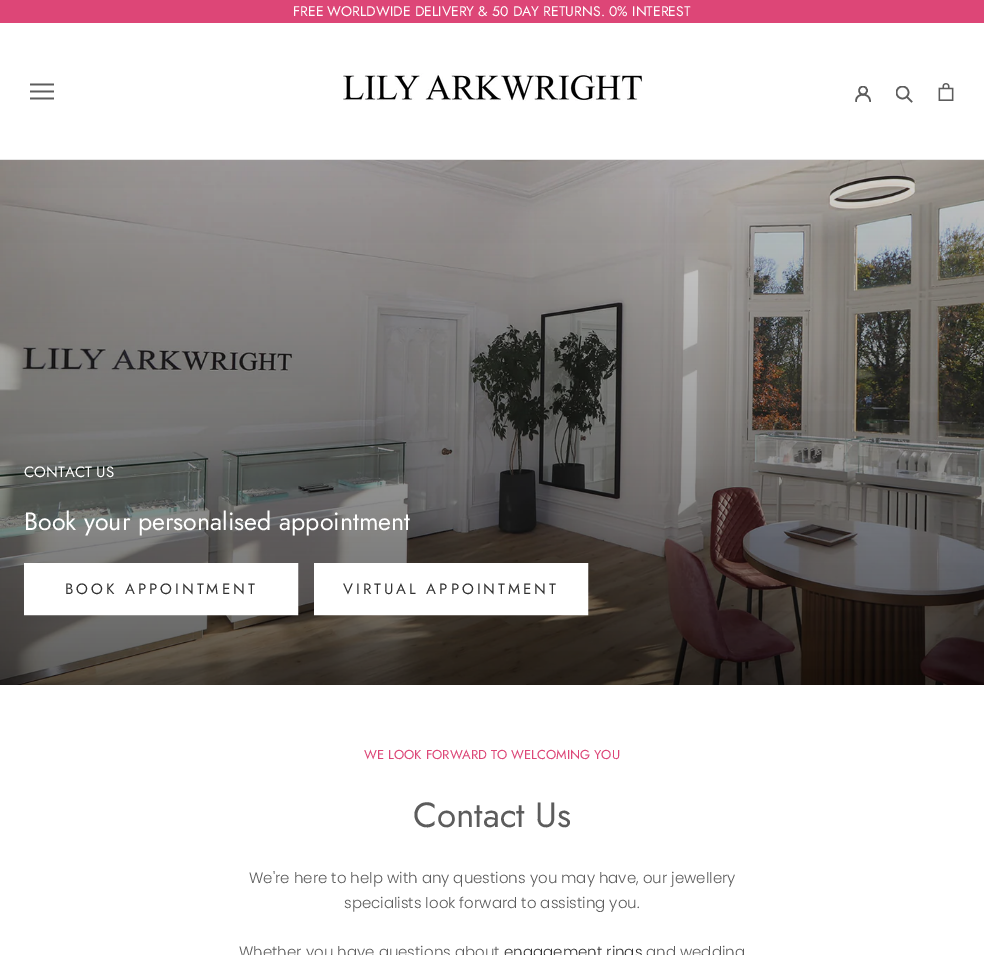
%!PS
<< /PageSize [984 955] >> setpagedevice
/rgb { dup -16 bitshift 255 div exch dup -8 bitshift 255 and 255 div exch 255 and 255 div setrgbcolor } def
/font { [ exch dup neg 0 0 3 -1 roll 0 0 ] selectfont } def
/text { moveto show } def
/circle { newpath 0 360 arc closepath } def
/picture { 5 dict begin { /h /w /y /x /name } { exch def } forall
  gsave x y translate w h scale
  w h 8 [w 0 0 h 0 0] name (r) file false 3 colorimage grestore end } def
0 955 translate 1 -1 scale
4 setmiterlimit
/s1 { /Jost-Regular 14 font 16#FFFFFF rgb } def
/s2 { /Jost-Regular 15 font 16#FFFFFF rgb } def
/s3 { /Jost-Regular 25 font 16#FFFFFF rgb } def
/s4 { /Jost-Regular 13 font 16#DD4677 rgb } def
/s5 { /Jost-Regular 35 font 16#5C5C5C rgb } def
/s6 { /Poppins-Light 15 font 16#5C5C5C rgb } def
/s7 { /Poppins-Light 15 font 16#323232 rgb } def
16#FFFFFF rgb
0 0 984 955 rectfill
16#DD4677 rgb
0 0 984 23 rectfill
s1
(FREE WORLDWIDE DELIVERY & 50 DAY RETURNS. 0% INTEREST) 293 16 text
16#E7E7E7 rgb
0 159 984 1 rectfill
(pic1.raw) 30 83 24 17 picture
(pic2.raw) 343 73 300 28 picture
16#5C5C5C rgb
1.6 setlinewidth
2 setlinecap
856 101 moveto 856 92.5 870 92.5 870 101 curveto stroke
gsave
855 86 16 16 rectclip
0 setlinecap
863 90.5 4 circle stroke
grestore
911.5 101.5 moveto 907 97 lineto stroke
gsave
896 86 17 17 rectclip
0 setlinecap
902.5 92.5 6 circle stroke
grestore
(pic3.raw) 938 83 16 18 picture
(pic4.raw) 0 160 984 525 picture
s2
(CONTACT US) 24 477 text
s3
(Book your personalised appointment) 24 530 text
1 setlinewidth
0 setlinecap
24.5 563.5 273 51 rectstroke
25 564 272 50 rectfill
/Jost-Regular 15 font
16#323232 rgb
65 594 moveto 3 0 (BOOK APPOINTMENT) ashow
16#FFFFFF rgb
314.5 563.5 273 51 rectstroke
315 564 272 50 rectfill
16#323232 rgb
343 594 moveto 3 0 (VIRTUAL APPOINTMENT) ashow
s4
(WE LOOK FORWARD TO WELCOMING YOU) 364 759 text
s5
(Contact Us) 413 827 text
s6
(We're here to help with any questions you may have, our jewellery) 249 883 text
(specialists look forward to assisting you.) 344 908 text
(Whether you have questions about) 239 957 text
s7
(engagement rings) 504 957 text
s6
(and wedding) 646 957 text
showpage
